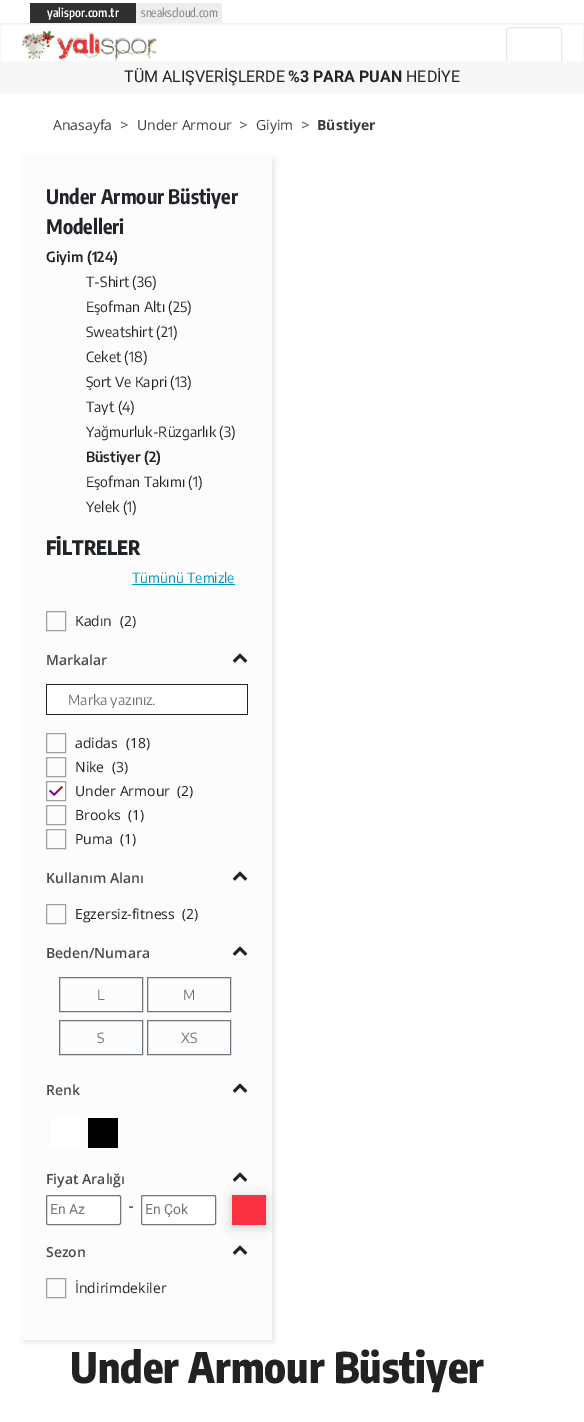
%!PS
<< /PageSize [584 1422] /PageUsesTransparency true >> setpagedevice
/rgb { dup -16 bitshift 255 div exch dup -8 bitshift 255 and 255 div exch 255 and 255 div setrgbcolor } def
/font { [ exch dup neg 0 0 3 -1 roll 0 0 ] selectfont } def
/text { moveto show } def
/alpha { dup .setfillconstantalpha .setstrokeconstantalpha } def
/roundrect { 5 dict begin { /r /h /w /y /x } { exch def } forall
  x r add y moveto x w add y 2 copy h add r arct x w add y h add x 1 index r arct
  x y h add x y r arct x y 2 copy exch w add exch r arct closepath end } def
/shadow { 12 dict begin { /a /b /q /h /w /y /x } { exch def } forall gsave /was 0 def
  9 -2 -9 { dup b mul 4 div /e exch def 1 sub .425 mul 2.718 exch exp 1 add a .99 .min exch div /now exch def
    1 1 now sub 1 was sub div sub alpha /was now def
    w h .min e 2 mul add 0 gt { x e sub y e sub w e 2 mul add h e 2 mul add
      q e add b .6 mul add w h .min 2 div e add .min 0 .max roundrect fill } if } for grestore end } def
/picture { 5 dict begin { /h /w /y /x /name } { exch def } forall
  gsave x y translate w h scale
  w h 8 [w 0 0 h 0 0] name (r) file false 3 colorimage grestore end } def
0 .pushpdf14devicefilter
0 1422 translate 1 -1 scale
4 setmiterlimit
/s1 { /EncodeSansCondensed-SemiBold 12 font 16#FFFFFF rgb } def
/s2 { /EncodeSansCondensed-Regular 12 font 16#7F7F7F rgb } def
/s3 { /Roboto-Regular 16 font 16#212529 rgb } def
/s4 { /Roboto-Bold 16 font 16#212529 rgb } def
/s5 { /OpenSans-Regular 14 font 16#3D3D3D rgb } def
/s6 { /Roboto-Regular 16 font 16#6C757D rgb } def
/s7 { /OpenSans-Bold 14 font 16#3D3D3D rgb } def
/s8 { /EncodeSansCondensed-Bold 20 font 16#212529 rgb } def
/s9 { /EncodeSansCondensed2-SemiBold 14 font 16#222222 rgb } def
/s10 { /EncodeSansCondensed2-Regular 14 font 16#222222 rgb } def
/s11 { /EncodeSansCondensed-ExtraBold 20 font 16#212529 rgb } def
/s12 { /EncodeSansCondensed2-Regular 14 font 16#0197BF rgb } def
/s13 { /OpenSans-Regular 14 font 16#222222 rgb } def
/s14 { /OpenSans-SemiBold 14 font 16#4A4A4A rgb } def
/s15 { /EncodeSansCondensed2-Regular 14 font 16#6C757D rgb } def
/s16 { /Roboto-Regular 14 font 16#757575 rgb } def
/s17 { /EncodeSansCondensed-ExtraBold 42 font 16#222222 rgb } def
16#FFFFFF rgb
0 0 584 1422 rectfill
16#F1F1F1 rgb
0 23 584 1 rectfill
16#303030 rgb
30 3 106 20 rectfill
s1
(yalispor.com.tr) 47 17 text
16#EDEDED rgb
136 3 86 20 rectfill
s2
(sneakscloud.com) 141 17 text
16#F7F7F7 rgb
0.5 24.5 583 43 rectstroke
(pic1.raw) 22 30 135 31 picture
16#E6E6E6 rgb
506.5 27.5 55 39 3.5 roundrect stroke
16#F7F7F7 rgb
0 61 584 32 rectfill
s3
(TÜM ALIŞVERİŞLERDE) 124 82 text
s4
(%3 PARA PUAN) 288 82 text
s3
(HEDİYE) 406 82 text
s5
(Anasayfa) 53 130 text
s6
(>) 120 130 text
s5
(Under Armour) 137 130 text
s6
(>) 239 130 text
s5
(Giyim) 256 130 text
s6
(>) 301 130 text
s7
(Büstiyer) 317 130 text
16#000000 rgb
24 159 250 1183 0 2.5 0.1 shadow
16#FCFCFC rgb
22 157 250 1183 rectfill
s8
(Under Armour Büstiyer) 46 204 text
(Modelleri) 46 234 text
s9
(Giyim \(124\)) 46 262 text
s10
(T-Shirt \(36\)) 86 287 text
(Eşofman Altı \(25\)) 86 312 text
(Sweatshirt \(21\)) 86 337 text
(Ceket \(18\)) 86 362 text
(Şort Ve Kapri \(13\)) 86 387 text
(Tayt \(4\)) 86 412 text
(Yağmurluk-Rüzgarlık \(3\)) 86 437 text
s9
(Büstiyer \(2\)) 86 462 text
s10
(Eşofman Takımı \(1\)) 86 487 text
(Yelek \(1\)) 86 512 text
s11
(FİLTRELER) 46 555 text
s12
(Tümünü Temizle) 132 583 text
132 584 103 1 rectfill
16#A0A0A0 rgb
46.5 611.5 19 19 rectstroke
s13
(Kadın) 75 626 text
(\(2\)) 120 626 text
s14
(Markalar) 46 665 text
(pic2.raw) 232 653 16 10 picture
16#222222 rgb
46 684 202 1 rectfill
46 714 11 1 rectfill
46 684 1 31 rectfill
16#FFFFFF rgb
51 685 moveto 57 685 lineto 57 714 lineto 51 714 lineto 49 714 47 712 47 710 curveto 47 689 lineto 47 687 49 685 51 685 curveto closepath fill
57 685 190 29 rectfill
16#222222 rgb
247 684 1 31 rectfill
56 714 192 1 rectfill
s15
(Marka yazınız.) 68 705 text
16#A0A0A0 rgb
46.5 733.5 19 19 rectstroke
s13
(adidas) 75 748 text
(\(18\)) 126 748 text
16#A0A0A0 rgb
46.5 757.5 19 19 rectstroke
s13
(Nike) 75 772 text
(\(3\)) 112 772 text
16#FFFFFF rgb
46.5 781.5 moveto 65.5 781.5 lineto 65.5 800.5 lineto 46.5 800.5 lineto closepath gsave fill grestore
16#A0A0A0 rgb
stroke
s13
(Under Armour) 75 796 text
(\(2\)) 177 796 text
(pic3.raw) 49 786 14 10 picture
16#A0A0A0 rgb
46.5 805.5 19 19 rectstroke
s13
(Brooks) 75 820 text
(\(1\)) 128 820 text
16#A0A0A0 rgb
46.5 829.5 19 19 rectstroke
s13
(Puma) 75 844 text
(\(1\)) 120 844 text
s14
(Kullanım Alanı) 46 883 text
(pic2.raw) 232 871 16 10 picture
16#A0A0A0 rgb
46.5 904.5 19 19 rectstroke
s13
(Egzersiz-fitness) 75 919 text
(\(2\)) 182 919 text
s14
(Beden/Numara) 46 958 text
(pic2.raw) 232 946 16 10 picture
16#6C757D rgb
59.5 977.5 83 34 rectstroke
s15
(L) 97 1000 text
147.5 977.5 83 34 rectstroke
(M) 183 1000 text
59.5 1020.5 83 34 rectstroke
(S) 97 1043 text
147.5 1020.5 83 34 rectstroke
(XS) 181 1043 text
s14
(Renk) 46 1095 text
(pic2.raw) 232 1083 16 10 picture
16#FFFFFF rgb
50 1118 30 30 rectfill
16#000000 rgb
88 1118 30 30 rectfill
s14
(Fiyat Aralığı) 46 1184 text
(pic2.raw) 232 1172 16 10 picture
16#FFFFFF rgb
46.5 1195.5 74 29 1.5 roundrect gsave fill grestore
16#767676 rgb
stroke
s16
(En Az) 50 1214 text
s3
(-) 129 1212 text
16#FFFFFF rgb
141.5 1195.5 74 29 1.5 roundrect gsave fill grestore
16#767676 rgb
stroke
s16
(En Çok) 145 1214 text
16#000000 rgb
232 1197 34 30 0 5 0.2 shadow
16#F93140 rgb
232 1195 34 30 rectfill
s14
(Sezon) 46 1257 text
(pic2.raw) 232 1245 16 10 picture
16#A0A0A0 rgb
46.5 1278.5 19 19 rectstroke
s13
(İndirimdekiler) 75 1293 text
s17
(Under Armour Büstiyer) 70 1383 text
.poppdf14devicefilter showpage
